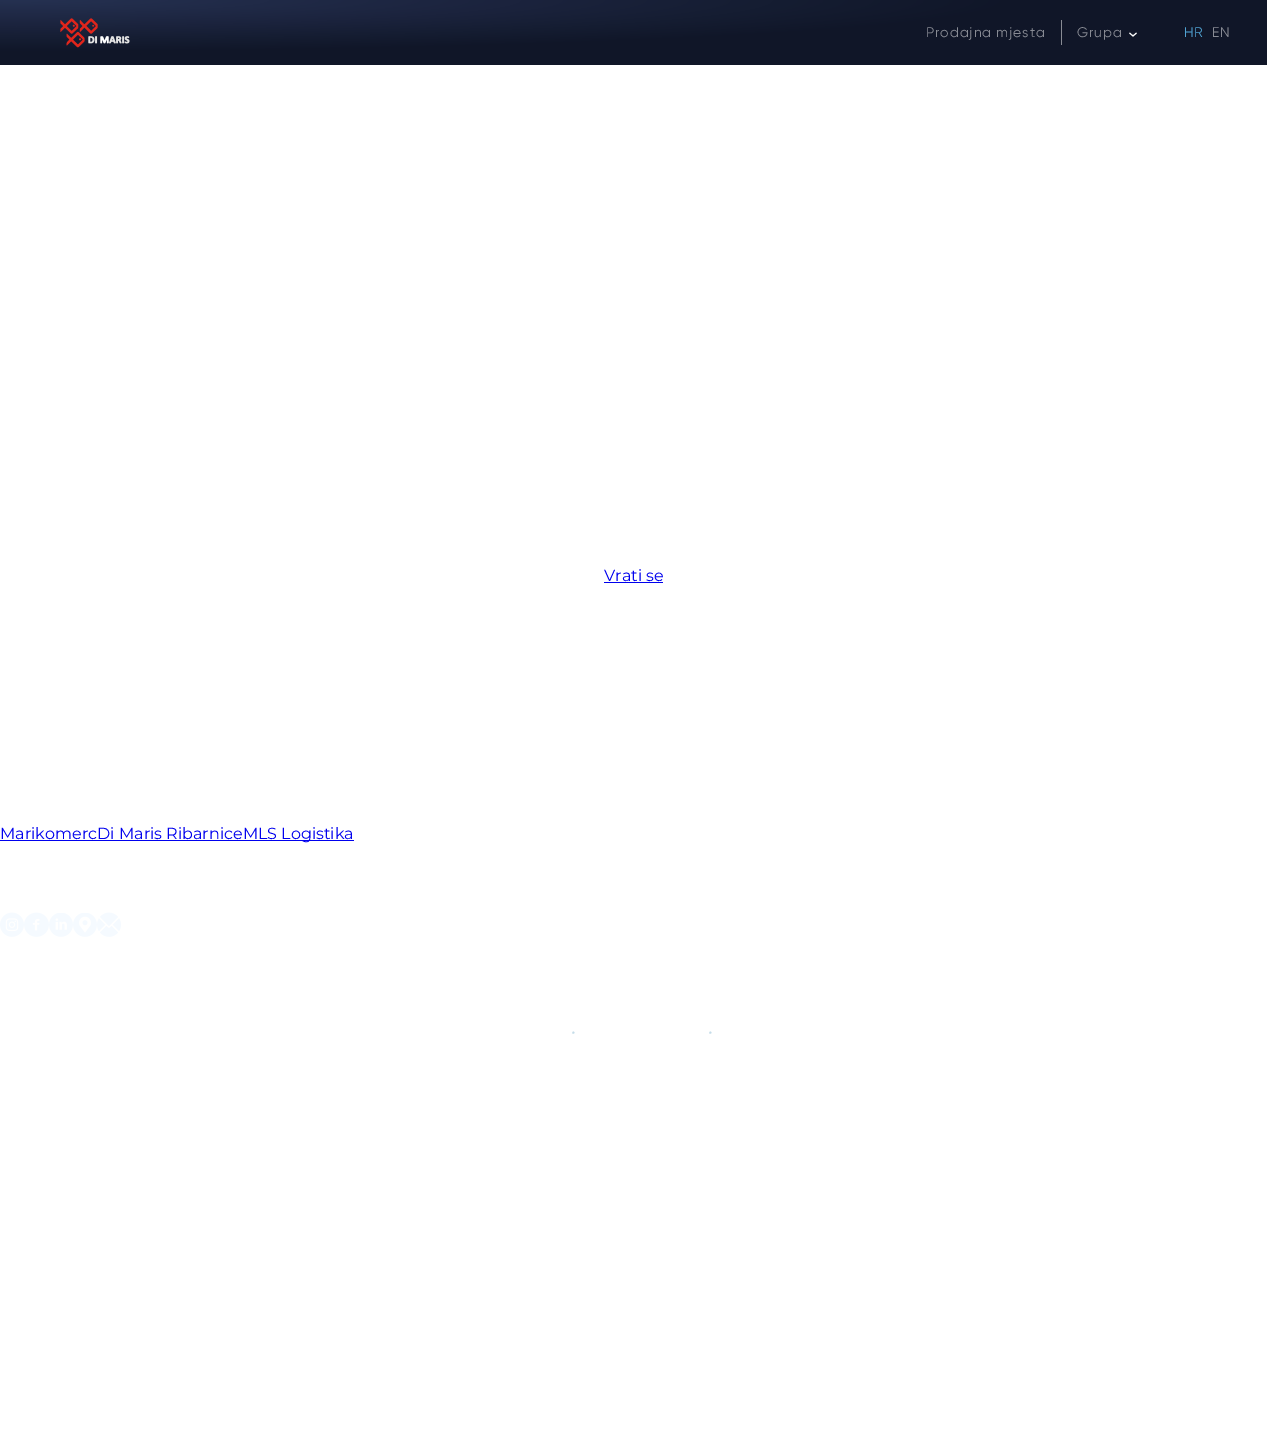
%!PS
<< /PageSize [1267 1435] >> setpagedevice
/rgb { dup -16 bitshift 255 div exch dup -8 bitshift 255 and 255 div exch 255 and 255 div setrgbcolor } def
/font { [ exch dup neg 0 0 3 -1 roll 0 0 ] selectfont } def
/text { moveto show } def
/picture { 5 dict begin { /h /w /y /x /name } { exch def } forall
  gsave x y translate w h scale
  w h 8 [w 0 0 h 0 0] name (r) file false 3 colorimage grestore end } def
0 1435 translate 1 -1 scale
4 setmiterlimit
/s1 { /Montserrat-Regular 16 font 16#0000EE rgb } def
/s2 { /Montserrat-Regular 16 font 16#C4DCE9 rgb } def
16#FFFFFF rgb
0 0 1267 1435 rectfill
gsave 0 0 moveto 1267 0 lineto 1267 65 lineto 0 65 lineto closepath clip newpath 17 0 translate 1008 52 scale
<< /ShadingType 3 /ColorSpace /DeviceRGB /Coords [0 0 0 0 0 1] /Extend [true true] /Function << /FunctionType 2 /Domain [0 1] /C0 [0.145 0.192 0.318] /C1 [0.063 0.086 0.157] /N 1 >> >> shfill grestore
(pic1.raw) 60 18 70 30 picture
/Gilroy-Regular 14 font
16#888B94 rgb
926 37 moveto 0.9 0 (Prodajna mjesta) ashow
1061 20 1 25 rectfill
1077 37 moveto 0.9 0 (Grupa) ashow
16#FFFFFF rgb
1129.5 33 moveto 1133 36 lineto 1136.5 33 lineto stroke
16#50A4D4 rgb
1184 37 moveto 0.9 0 (HR) ashow
16#888B94 rgb
1212 37 moveto 0.9 0 (EN) ashow
s1
(Vrati se) 604 581 text
604 582 59 1 rectfill
0 840 354 1 rectfill
(MarikomercDi Maris RibarniceMLS Logistika) 0 839 text
(pic2.raw) 0 912 24 25 picture
(pic3.raw) 24 912 25 25 picture
(pic4.raw) 49 913 24 24 picture
(pic5.raw) 73 913 24 24 picture
(pic6.raw) 97 912 24 25 picture
s2
(•) 571 1037 text
(•) 708 1037 text
showpage
